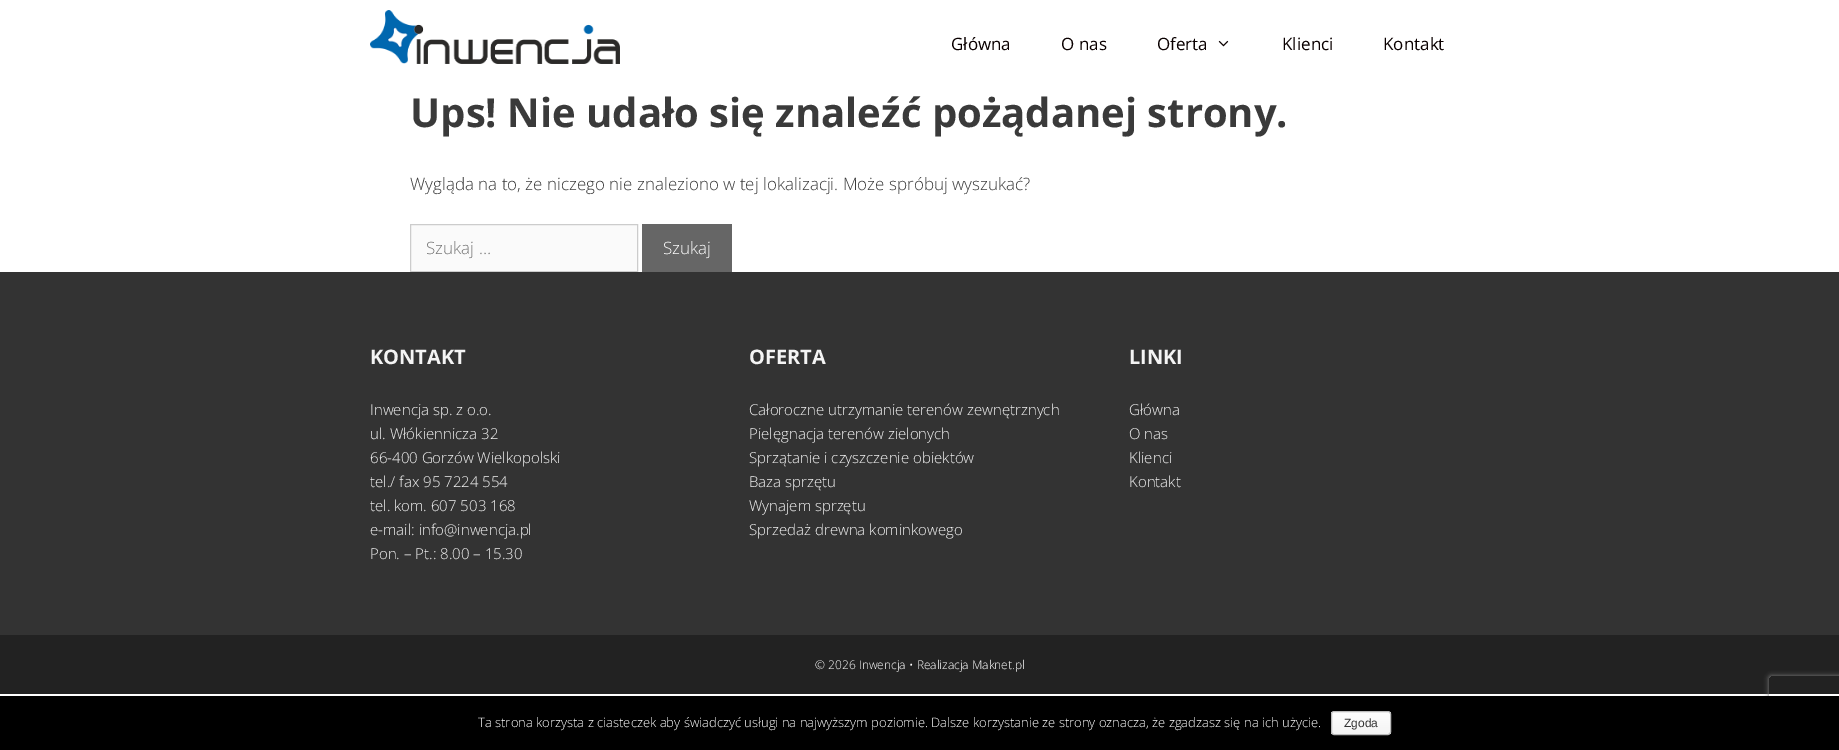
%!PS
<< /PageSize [1839 750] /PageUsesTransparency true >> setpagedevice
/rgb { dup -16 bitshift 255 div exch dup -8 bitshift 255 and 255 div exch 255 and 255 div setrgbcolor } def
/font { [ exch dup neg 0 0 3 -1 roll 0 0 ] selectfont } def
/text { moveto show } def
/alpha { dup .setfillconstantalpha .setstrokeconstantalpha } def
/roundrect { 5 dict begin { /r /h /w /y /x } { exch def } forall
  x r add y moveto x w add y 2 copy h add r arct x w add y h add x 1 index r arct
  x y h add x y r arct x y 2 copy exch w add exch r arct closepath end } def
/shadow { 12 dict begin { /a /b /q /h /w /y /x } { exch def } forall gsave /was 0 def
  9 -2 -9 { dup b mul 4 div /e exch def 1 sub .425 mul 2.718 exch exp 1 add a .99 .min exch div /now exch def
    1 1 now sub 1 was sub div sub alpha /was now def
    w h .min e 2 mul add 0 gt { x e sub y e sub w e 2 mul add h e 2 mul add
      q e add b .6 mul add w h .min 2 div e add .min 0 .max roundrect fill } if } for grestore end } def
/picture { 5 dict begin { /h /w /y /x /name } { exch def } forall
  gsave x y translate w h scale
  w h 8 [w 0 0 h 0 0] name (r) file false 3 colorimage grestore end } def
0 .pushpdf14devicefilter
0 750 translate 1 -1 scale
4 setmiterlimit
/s1 { /OpenSans-Regular 17 font 16#0A0000 rgb } def
/s2 { /OpenSans-Bold 40 font 16#3A3A3A rgb } def
/s3 { /OpenSans-Light 17 font 16#3A3A3A rgb } def
/s4 { /OpenSans-Light 17 font 16#757575 rgb } def
/s5 { /OpenSans-Light 17 font 16#FFFFFF rgb } def
/s6 { /OpenSans-Bold 20 font 16#F4F4F4 rgb } def
/s7 { /OpenSans-Light 15 font 16#F4F4F4 rgb } def
/s8 { /OpenSans-Light 12 font 16#FFFFFF rgb } def
/s9 { /OpenSans-Light 13 font 16#FFFFFF rgb } def
/s10 { /LiberationSans-Regular 12 font 16#333333 rgb } def
16#FFFFFF rgb
0 0 1839 750 rectfill
(pic1.raw) 370 10 250 54 picture
s1
(Główna) 951 50 text
(O nas) 1061 50 text
(Oferta) 1157 50 text
(pic2.raw) 1218 40 11 7 picture
(Klienci) 1282 50 text
(Kontakt) 1383 50 text
s2
(Ups! Nie udało się znaleźć pożądanej strony.) 410 127 text
s3
(Wygląda na to, że niczego nie znaleziono w tej lokalizacji. Może spróbuj wyszukać?) 410 190 text
16#FAFAFA rgb
410.5 224.5 moveto 637.5 224.5 lineto 637.5 271.5 lineto 410.5 271.5 lineto closepath gsave fill grestore
16#CCCCCC rgb
stroke
s4
(Szukaj …) 426 254 text
16#666666 rgb
642 224 90 48 rectfill
s5
(Szukaj) 663 254 text
16#333333 rgb
0 272 1839 363 rectfill
s6
(KONTAKT) 370 364 text
s7
(Inwencja sp. z o.o.) 370 415 text
(ul. Włókiennicza 32) 370 439 text
(66-400 Gorzów Wielkopolski) 370 463 text
(tel./ fax 95 7224 554) 370 487 text
(tel. kom. 607 503 168) 370 511 text
(e-mail: info@inwencja.pl) 370 535 text
(Pon. – Pt.: 8.00 – 15.30) 370 559 text
s6
(OFERTA) 749 364 text
s7
(Całoroczne utrzymanie terenów zewnętrznych) 749 415 text
(Pielęgnacja terenów zielonych) 749 439 text
(Sprzątanie i czyszczenie obiektów) 749 463 text
(Baza sprzętu) 749 487 text
(Wynajem sprzętu) 749 511 text
(Sprzedaż drewna kominkowego) 749 535 text
s6
(LINKI) 1129 364 text
s7
(Główna) 1129 415 text
(O nas) 1129 439 text
(Klienci) 1129 463 text
(Kontakt) 1129 487 text
16#222222 rgb
0 635 1839 59 rectfill
s8
(© 2026 Inwencja • Realizacja Maknet.pl) 815 669 text
gsave
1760 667 moveto 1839 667 lineto 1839 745 lineto 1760 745 lineto closepath 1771 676 moveto 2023 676 lineto 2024 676 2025 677 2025 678 curveto 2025 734 lineto 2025 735 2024 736 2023 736 curveto 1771 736 lineto 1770 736 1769 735 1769 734 curveto 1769 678 lineto 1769 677 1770 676 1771 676 curveto closepath eoclip newpath
16#808080 rgb
1769 676 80 60 2 2.5 1 shadow
grestore
16#000000 rgb
0 696 1839 54 rectfill
s9
(Ta strona korzysta z ciasteczek aby świadczyć usługi na najwyższym poziomie. Dalsze korzystanie ze strony oznacza, że zgadzasz się na ich użycie.) 478 727 text
gsave
1331 711 60 24 3 roundrect clip newpath
gsave 1331 712 moveto 1391 712 lineto 1391 734 lineto 1331 734 lineto closepath clip newpath
<< /ShadingType 2 /ColorSpace /DeviceRGB /Coords [1361 712 1361 734] /Extend [true true] /Function << /FunctionType 2 /Domain [0 1] /C0 [0.996 0.996 0.996] /C1 [0.957 0.957 0.957] /N 1 >> >> shfill grestore
grestore
16#BBBBBB rgb
1331.5 711.5 59 23 2.5 roundrect stroke
s10
(Zgoda) 1344 727 text
.poppdf14devicefilter showpage
